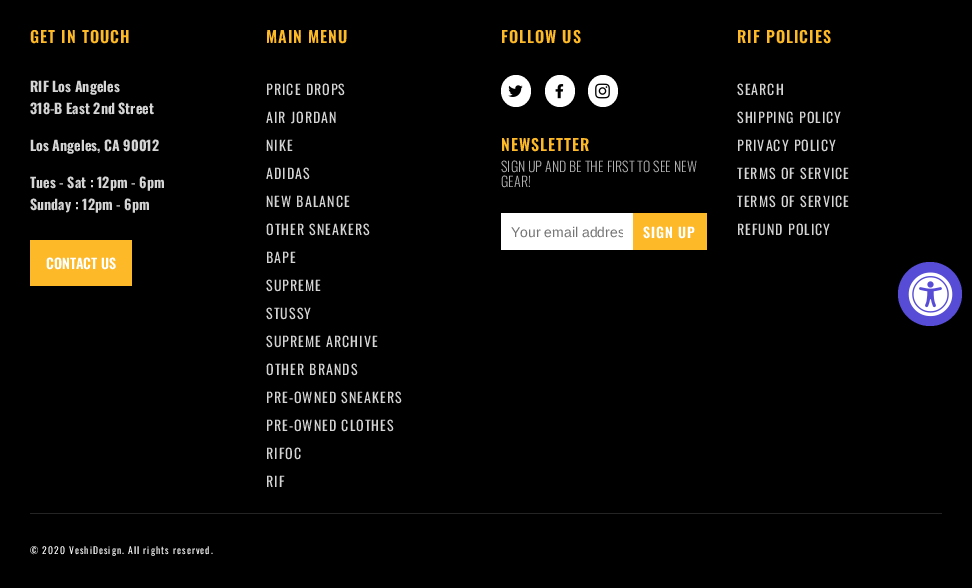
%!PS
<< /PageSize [972 588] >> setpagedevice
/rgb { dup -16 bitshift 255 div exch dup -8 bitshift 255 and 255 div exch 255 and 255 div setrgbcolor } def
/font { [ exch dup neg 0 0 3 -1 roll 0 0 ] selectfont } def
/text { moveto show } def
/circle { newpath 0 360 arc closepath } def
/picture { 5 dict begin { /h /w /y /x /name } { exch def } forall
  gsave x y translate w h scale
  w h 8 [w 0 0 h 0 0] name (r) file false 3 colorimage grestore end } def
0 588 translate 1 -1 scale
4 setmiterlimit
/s1 { /Oswald-Bold 14 font 16#D5D5D5 rgb } def
/s2 { /Oswald-SemiBold 14 font 16#FFFFFF rgb } def
/s3 { /Oswald-Light 14 font 16#B1B1B1 rgb } def
/s4 { /LiberationSans-Regular 14 font 16#757575 rgb } def
16#000000 rgb
0 0 972 588 rectfill
/Oswald-SemiBold 16 font
16#FDB928 rgb
30 43 moveto 1 0 (GET IN TOUCH) ashow
s1
(RIF Los Angeles) 30 92 text
(318-B East 2nd Street) 30 114 text
(Los Angeles, CA 90012) 30 151 text
(Tues - Sat : 12pm - 6pm) 30 188 text
(Sunday : 12pm - 6pm) 30 210 text
16#FDB928 rgb
30 240 102 46 rectfill
s2
(CONTACT US) 46 269 text
/Oswald-SemiBold 16 font
16#FDB928 rgb
266 43 moveto 1 0 (MAIN MENU) ashow
/Oswald-Regular 14 font
16#D5D5D5 rgb
266 95 moveto 1 0 (PRICE DROPS) ashow
266 123 moveto 1 0 (AIR JORDAN) ashow
266 151 moveto 1 0 (NIKE) ashow
266 179 moveto 1 0 (ADIDAS) ashow
266 207 moveto 1 0 (NEW BALANCE) ashow
266 235 moveto 1 0 (OTHER SNEAKERS) ashow
266 263 moveto 1 0 (BAPE) ashow
266 291 moveto 1 0 (SUPREME) ashow
266 319 moveto 1 0 (STUSSY) ashow
266 347 moveto 1 0 (SUPREME ARCHIVE) ashow
266 375 moveto 1 0 (OTHER BRANDS) ashow
266 403 moveto 1 0 (PRE-OWNED SNEAKERS) ashow
266 431 moveto 1 0 (PRE-OWNED CLOTHES) ashow
266 459 moveto 1 0 (RIFOC) ashow
266 487 moveto 1 0 (RIF) ashow
/Oswald-SemiBold 16 font
16#FDB928 rgb
501 43 moveto 1 0 (FOLLOW US) ashow
16#FFFFFF rgb
516 75 moveto 524.5 75 531 82 531 91 curveto 531 100 524.5 107 516 107 curveto 507.5 107 501 100 501 91 curveto 501 82 507.5 75 516 75 curveto closepath fill
(pic1.raw) 508 85 15 12 picture
560 75 moveto 568.5 75 575 82 575 91 curveto 575 100 568.5 107 560 107 curveto 551.5 107 545 100 545 91 curveto 545 82 551.5 75 560 75 curveto closepath fill
(pic2.raw) 555 84 9 15 picture
603 75 moveto 611.5 75 618 82 618 91 curveto 618 100 611.5 107 603 107 curveto 594.5 107 588 100 588 91 curveto 588 82 594.5 75 603 75 curveto closepath fill
(pic3.raw) 595 83 15 16 picture
16#FDB928 rgb
501 151 moveto 1 0 (NEWSLETTER) ashow
s3
(SIGN UP AND BE THE FIRST TO SEE NEW) 501 172 text
(GEAR!) 501 187 text
16#FFFFFF rgb
501 213 132 37 rectfill
gsave
511 224 112 16 rectclip
s4
(Your email addres) 511 237 text
grestore
16#FDB928 rgb
633 213 74 37 rectfill
/Oswald-SemiBold 14 font
16#FFFFFF rgb
643 238 moveto 1 0 (SIGN UP) ashow
/Oswald-SemiBold 16 font
16#FDB928 rgb
737 43 moveto 1 0 (RIF POLICIES) ashow
/Oswald-Regular 14 font
16#D5D5D5 rgb
737 95 moveto 1 0 (SEARCH) ashow
737 123 moveto 1 0 (SHIPPING POLICY) ashow
737 151 moveto 1 0 (PRIVACY POLICY) ashow
737 179 moveto 1 0 (TERMS OF SERVICE) ashow
737 207 moveto 1 0 (TERMS OF SERVICE) ashow
737 235 moveto 1 0 (REFUND POLICY) ashow
16#242424 rgb
30 513 912 1 rectfill
/Oswald-Regular 9.6 font
16#FFFFFF rgb
30 554 moveto 1 0 (© 2020 VeshiDesign. All rights reserved.) ashow
16#574CD5 rgb
930 294 32 circle fill
(pic4.raw) 908 272 45 45 picture
showpage
